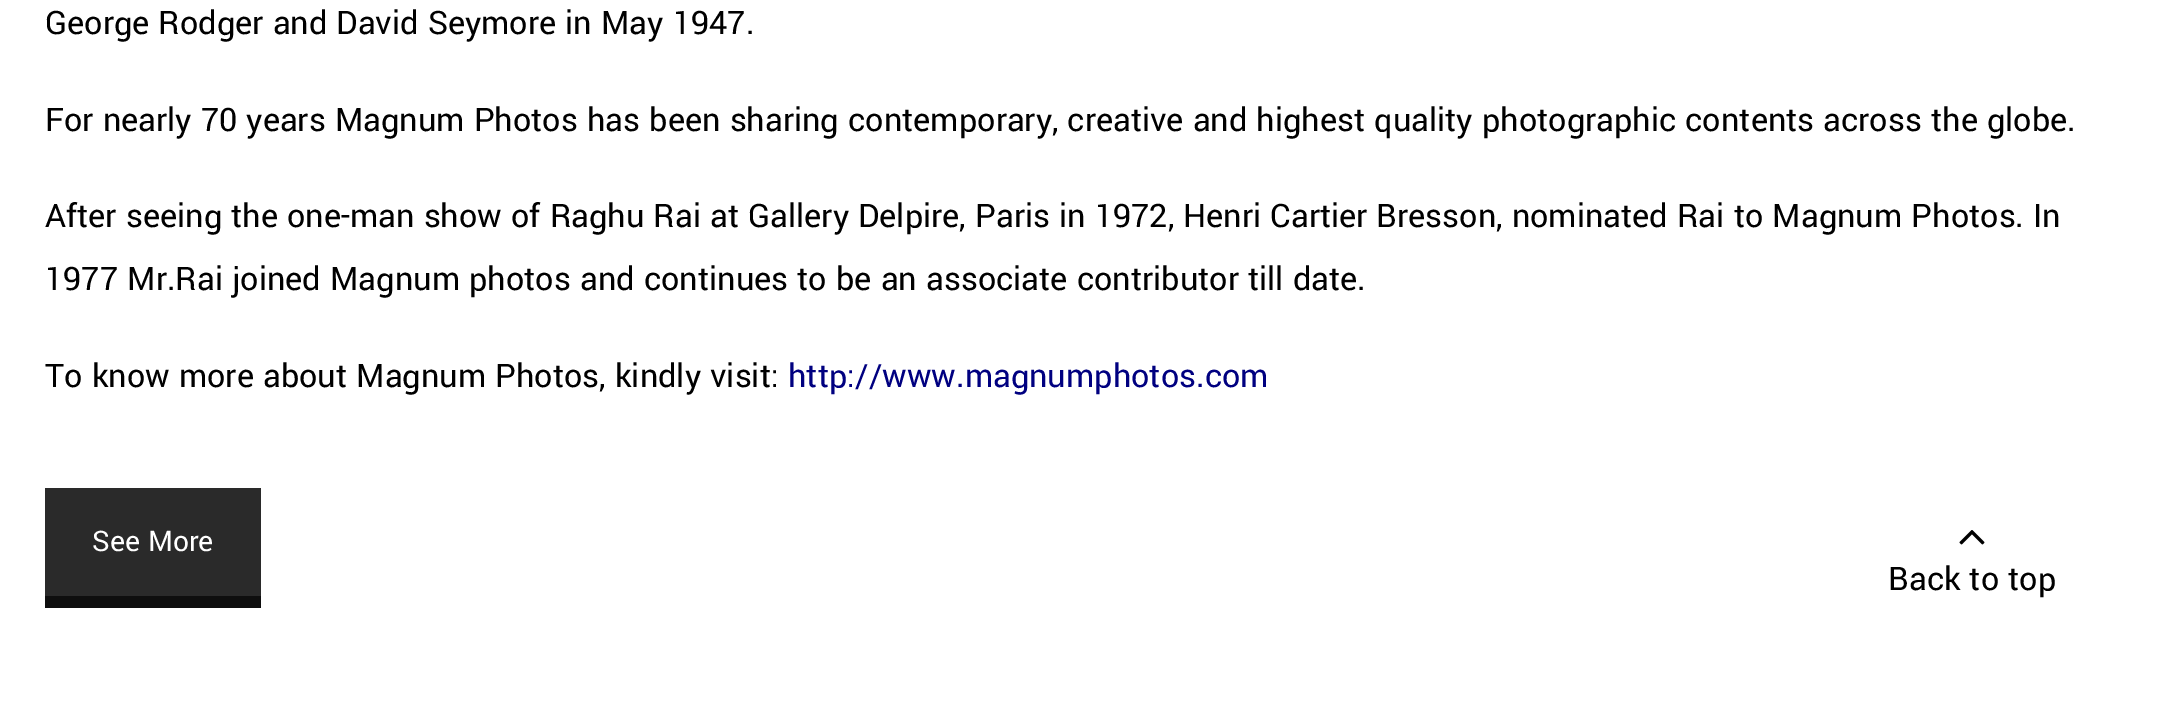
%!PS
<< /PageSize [2167 715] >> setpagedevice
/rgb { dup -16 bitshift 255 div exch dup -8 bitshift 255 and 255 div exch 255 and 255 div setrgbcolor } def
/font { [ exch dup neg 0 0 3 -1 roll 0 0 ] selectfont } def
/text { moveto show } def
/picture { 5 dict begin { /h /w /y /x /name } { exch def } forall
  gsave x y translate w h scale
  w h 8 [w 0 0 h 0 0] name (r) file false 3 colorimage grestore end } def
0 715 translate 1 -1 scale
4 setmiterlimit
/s1 { /Yantramanav-Regular 36 font 16#000000 rgb } def
/s2 { /Yantramanav-Regular 36 font 16#000080 rgb } def
/s3 { /Yantramanav-Regular 31.5 font 16#FFFFFF rgb } def
16#FFFFFF rgb
0 0 2167 715 rectfill
s1
(George Rodger and David Seymore in May 1947.) 45 34 text
(For nearly 70 years Magnum Photos has been sharing contemporary, creative and highest quality photographic contents across the globe.) 45 131 text
(After seeing the one-man show of Raghu Rai at Gallery Delpire, Paris in 1972, Henri Cartier Bresson, nominated Rai to Magnum Photos. In) 45 227 text
(1977 Mr.Rai joined Magnum photos and continues to be an associate contributor till date.) 45 290 text
(To know more about Magnum Photos, kindly visit:) 45 387 text
s2
(http://www.magnumphotos.com) 788 387 text
16#0E0E0E rgb
45 596 216 12 rectfill
16#2A2A2A rgb
45 488 216 108 rectfill
s3
(See More) 92 551 text
(pic1.raw) 1959 530 26 15 picture
s1
(Back to top) 1888 590 text
showpage
